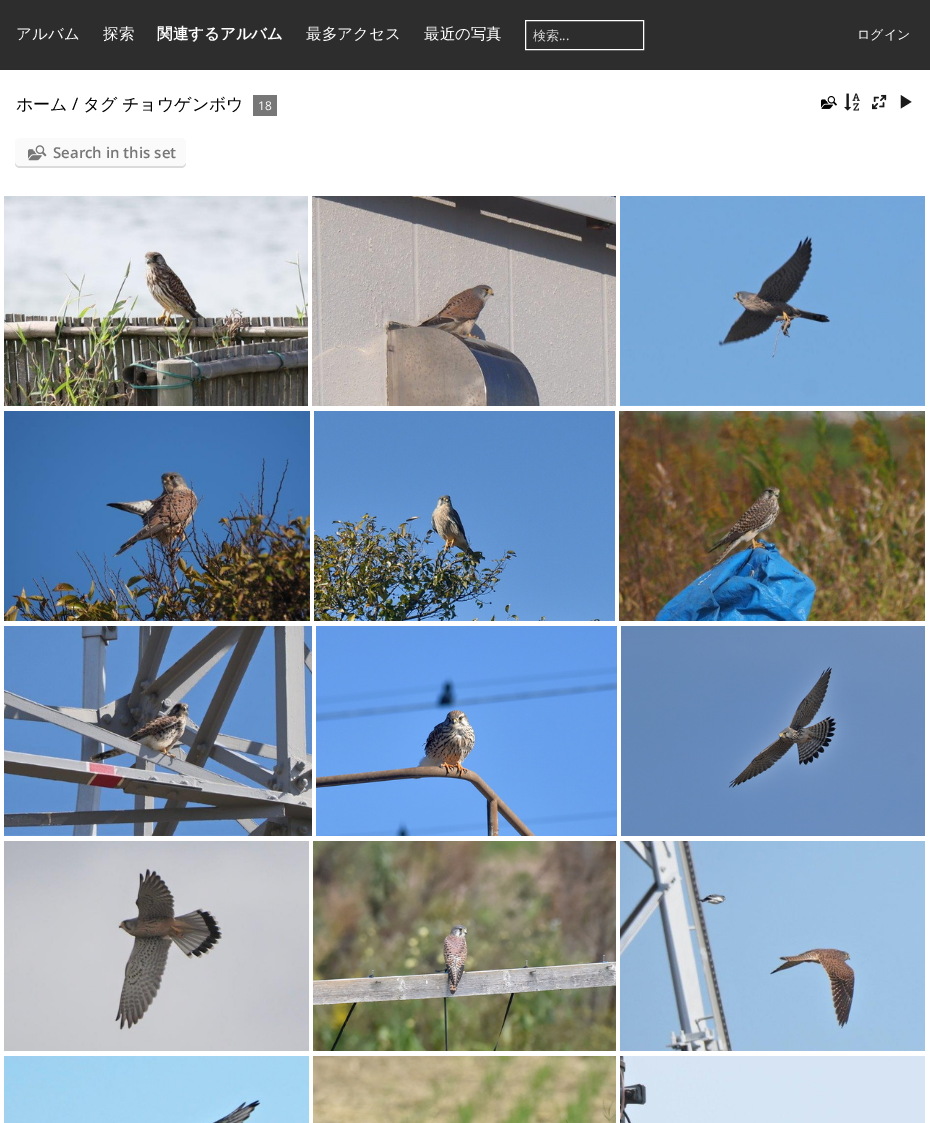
%!PS
<< /PageSize [930 1123] >> setpagedevice
/rgb { dup -16 bitshift 255 div exch dup -8 bitshift 255 and 255 div exch 255 and 255 div setrgbcolor } def
/font { [ exch dup neg 0 0 3 -1 roll 0 0 ] selectfont } def
/text { moveto show } def
/roundrect { 5 dict begin { /r /h /w /y /x } { exch def } forall
  x r add y moveto x w add y 2 copy h add r arct x w add y h add x 1 index r arct
  x y h add x y r arct x y 2 copy exch w add exch r arct closepath end } def
/picture { 5 dict begin { /h /w /y /x /name } { exch def } forall
  gsave x y translate w h scale
  w h 8 [w 0 0 h 0 0] name (r) file false 3 colorimage grestore end } def
0 1123 translate 1 -1 scale
4 setmiterlimit
/s1 { /WenQuanYiZenHei-Medium 15.5 font 16#FFFFFF rgb } def
/s2 { /WenQuanYiZenHei-Bold 15.5 font 16#FFFFFF rgb } def
/s3 { /WenQuanYiZenHei-Medium 13 font 16#D6D6D6 rgb } def
/s4 { /OpenSans-Regular 13 font 16#D6D6D6 rgb } def
/s5 { /WenQuanYiZenHei-Medium 13 font 16#FFFFFF rgb } def
/s6 { /WenQuanYiZenHei-Medium 17 font 16#000000 rgb } def
/s7 { /OpenSans-Regular 17 font 16#000000 rgb } def
/s8 { /OpenSans-Regular 12 font 16#FFFFFF rgb } def
/s9 { /WenQuanYiZenHei-Medium 17 font 16#1A1A1A rgb } def
/s10 { /OpenSans-SemiBold 15 font 16#777777 rgb } def
16#FFFFFF rgb
0 0 930 1123 rectfill
16#2D2D2D rgb
0 0 930 70 rectfill
s1
(アルバム) 16 39 text
(探索) 103 39 text
s2
(関連するアルバム) 157 39 text
s1
(最多アクセス) 306 39 text
(最近の写真) 424 39 text
525.5 20.5 118 29 rectstroke
s3
(検索) 533 40 text
s4
(...) 559 40 text
s5
(ログイン) 857 39 text
s6
(ホーム) 16 110 text
s7
(/) 72 110 text
s6
(タグ) 83 110 text
(チョウゲンボウ) 122 110 text
16#777777 rgb
253 95 24 21 rectfill
s8
(18) 258 110 text
(pic1.raw) 821 96 16 13 picture
(pic2.raw) 844 93 16 18 picture
(pic3.raw) 872 94 15 16 picture
s9
(▶) 898 108 text
16#DBDBDB rgb
15 161 moveto 15 163 lineto 15 166 17 168 20 168 curveto 181 168 lineto 184 168 186 166 186 163 curveto 186 161 lineto 186 164 184 166 181 166 curveto 20 166 lineto 17 166 15 164 15 161 curveto closepath fill
16#FAFAFA rgb
15 138 171 28 5 roundrect fill
(pic4.raw) 28 145 19 16 picture
s10
(Search in this set) 53 158 text
(pic5.raw) 4 196 304 210 picture
(pic6.raw) 312 196 304 210 picture
(pic7.raw) 620 196 305 210 picture
(pic8.raw) 4 411 306 210 picture
(pic9.raw) 314 411 301 210 picture
(pic10.raw) 619 411 306 210 picture
(pic11.raw) 4 626 308 210 picture
(pic12.raw) 316 626 301 210 picture
(pic13.raw) 621 626 304 210 picture
(pic14.raw) 4 841 305 210 picture
(pic15.raw) 313 841 303 210 picture
(pic16.raw) 620 841 305 210 picture
(pic17.raw) 4 1056 305 67 picture
(pic18.raw) 313 1056 303 67 picture
(pic19.raw) 620 1056 305 67 picture
showpage
